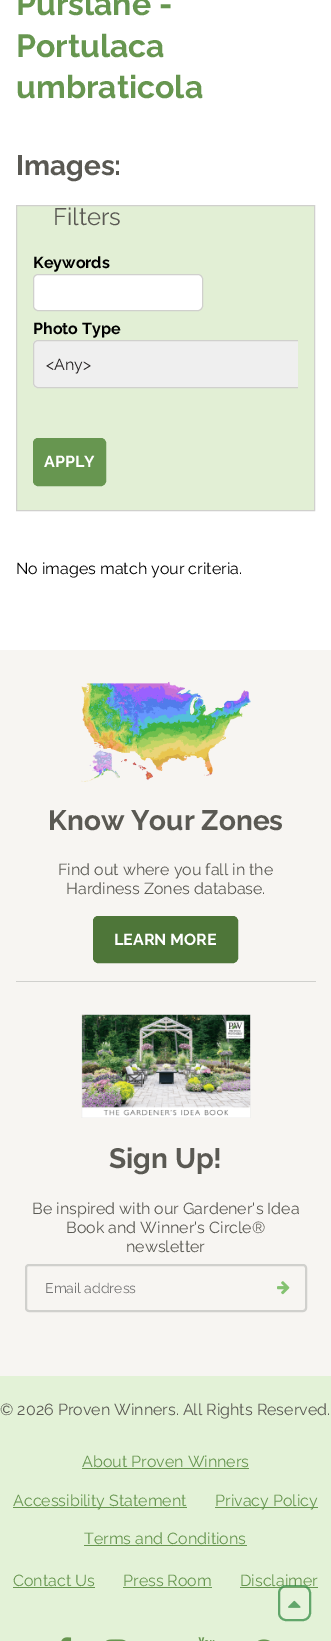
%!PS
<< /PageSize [331 1641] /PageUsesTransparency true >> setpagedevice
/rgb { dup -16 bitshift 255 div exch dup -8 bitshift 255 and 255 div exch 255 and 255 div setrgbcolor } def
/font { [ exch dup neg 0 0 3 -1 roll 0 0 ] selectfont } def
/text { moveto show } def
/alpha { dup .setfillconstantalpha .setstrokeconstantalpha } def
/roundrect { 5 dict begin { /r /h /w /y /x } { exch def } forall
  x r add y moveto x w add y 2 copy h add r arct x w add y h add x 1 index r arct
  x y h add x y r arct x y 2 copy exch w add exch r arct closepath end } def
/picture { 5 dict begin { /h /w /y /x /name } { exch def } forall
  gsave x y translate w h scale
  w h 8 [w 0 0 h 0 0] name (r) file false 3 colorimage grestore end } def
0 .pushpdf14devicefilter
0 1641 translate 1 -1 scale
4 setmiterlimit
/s1 { /Raleway-Bold 32 font 16#679650 rgb } def
/s2 { /Raleway-Bold 28 font 16#5A5953 rgb } def
/s3 { /Raleway-Regular 24 font 16#5A5953 rgb } def
/s4 { /Raleway-Bold 16 font 16#000000 rgb } def
/s5 { /Raleway-Regular 16 font 16#231F20 rgb } def
/s6 { /Raleway-Bold 16 font 16#FFFFFF rgb } def
/s7 { /Raleway-Regular 16 font 16#000000 rgb } def
/s8 { /Raleway-Regular 16 font 16#5A5953 rgb } def
/s9 { /Raleway-Regular 14 font 16#757575 rgb } def
/s10 { /Raleway-Regular 16 font 16#679650 rgb } def
16#FFFFFF rgb
0 0 331 1641 rectfill
s1
(Purslane -) 16 15 text
(Portulaca) 16 57 text
(umbraticola) 16 98 text
s2
(Images:) 16 175 text
16#E2EFD5 rgb
16.5 205.5 moveto 314.5 205.5 lineto 314.5 510.5 lineto 16.5 510.5 lineto closepath gsave fill grestore
16#D0D0CD rgb
stroke
s3
(Filters) 53 225 text
s4
(Keywords) 33 268 text
16#FFFFFF rgb
33.5 274.5 169 36 4.5 roundrect gsave fill grestore
16#D0D0CD rgb
stroke
s4
(Photo Type) 33 334 text
16#EFEFEF rgb
38 340 moveto 298 340 lineto 298 388 lineto 38 388 lineto 35 388 33 386 33 383 curveto 33 345 lineto 33 342 35 340 38 340 curveto closepath fill
gsave
33 245 265 249 rectclip
16#D0D0CD rgb
33.5 340.5 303 47 4.5 roundrect stroke
grestore
s5
(<Any>) 46 370 text
16#679650 rgb
33.5 438.5 72 47 4.5 roundrect gsave fill grestore
stroke
s6
(APPLY) 44 467 text
s7
(No images match your criteria.) 16 574 text
16#F7F5F2 rgb
0 650 331 726 rectfill
(pic1.raw) 81 682 170 100 picture
s2
(Know Your Zones) 48 830 text
s8
(Find out where you fall in the) 58 875 text
(Hardiness Zones database.) 66 894 text
16#4E7639 rgb
93.5 916.5 144 46 4.5 roundrect gsave fill grestore
stroke
s6
(LEARN MORE) 114 945 text
16#D0D0CD rgb
16 981 300 1 rectfill
(pic2.raw) 81 1014 170 104 picture
s2
(Sign Up!) 109 1168 text
s8
(Be inspired with our Gardener's Idea) 32 1214 text
(Book and Winner's Circle®) 66 1233 text
(newsletter) 126 1252 text
16#D0D0CD rgb
2 setlinewidth
26 1265 280 46 3 roundrect stroke
s9
(Email address) 45 1293 text
(pic3.raw) 277 1281 13 14 picture
16#E3F2D7 rgb
0 1376 331 265 rectfill
s8
(© 2026 Proven Winners. All Rights Reserved.) 0 1415 text
s10
(About Proven Winners) 82 1467 text
82 1468 167 1 rectfill
13 1507 174 1 rectfill
(Accessibility Statement) 13 1506 text
215 1507 103 1 rectfill
(Privacy Policy) 215 1506 text
(Terms and Conditions) 84 1544 text
84 1545 163 1 rectfill
(Contact Us) 13 1586 text
13 1587 82 1 rectfill
(Press Room) 123 1586 text
123 1587 89 1 rectfill
(Disclaimer) 240 1586 text
240 1587 78 1 rectfill
(pic4.raw) 61 1637 11 4 picture
(pic5.raw) 106 1639 20 2 picture
(pic6.raw) 198 1637 17 4 picture
(pic7.raw) 258 1639 12 2 picture
0.21 alpha
16#EFF7E9 rgb
278 1585 33 36 8 roundrect fill
0.7 alpha
16#29853A rgb
279 1586 31 34 7 roundrect stroke
1 alpha
(pic8.raw) 288 1600 13 8 picture
.poppdf14devicefilter showpage
